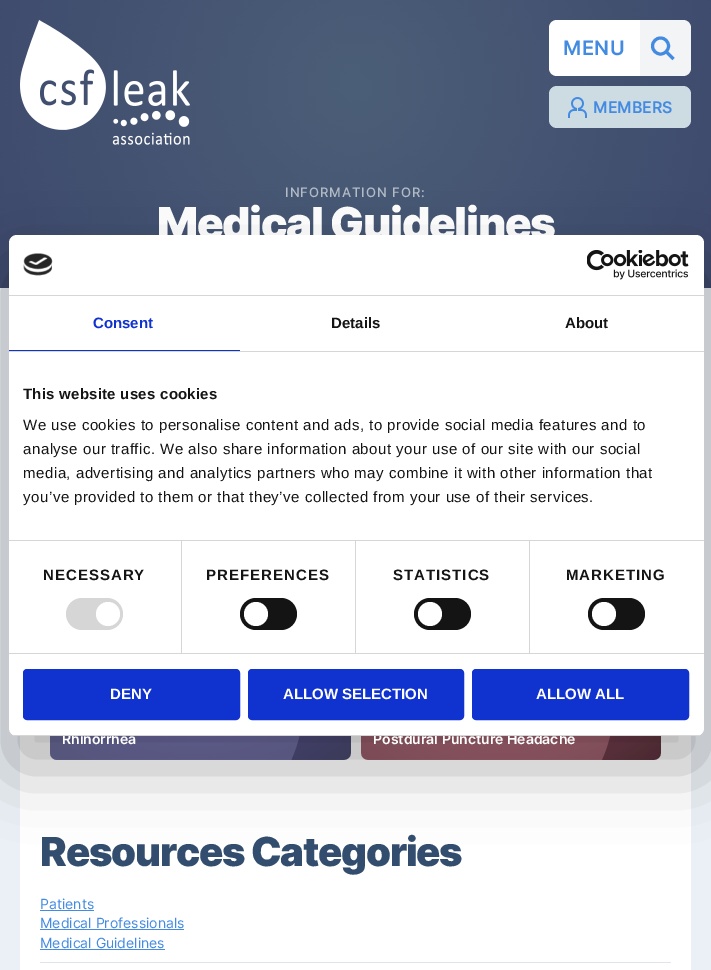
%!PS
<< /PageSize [711 970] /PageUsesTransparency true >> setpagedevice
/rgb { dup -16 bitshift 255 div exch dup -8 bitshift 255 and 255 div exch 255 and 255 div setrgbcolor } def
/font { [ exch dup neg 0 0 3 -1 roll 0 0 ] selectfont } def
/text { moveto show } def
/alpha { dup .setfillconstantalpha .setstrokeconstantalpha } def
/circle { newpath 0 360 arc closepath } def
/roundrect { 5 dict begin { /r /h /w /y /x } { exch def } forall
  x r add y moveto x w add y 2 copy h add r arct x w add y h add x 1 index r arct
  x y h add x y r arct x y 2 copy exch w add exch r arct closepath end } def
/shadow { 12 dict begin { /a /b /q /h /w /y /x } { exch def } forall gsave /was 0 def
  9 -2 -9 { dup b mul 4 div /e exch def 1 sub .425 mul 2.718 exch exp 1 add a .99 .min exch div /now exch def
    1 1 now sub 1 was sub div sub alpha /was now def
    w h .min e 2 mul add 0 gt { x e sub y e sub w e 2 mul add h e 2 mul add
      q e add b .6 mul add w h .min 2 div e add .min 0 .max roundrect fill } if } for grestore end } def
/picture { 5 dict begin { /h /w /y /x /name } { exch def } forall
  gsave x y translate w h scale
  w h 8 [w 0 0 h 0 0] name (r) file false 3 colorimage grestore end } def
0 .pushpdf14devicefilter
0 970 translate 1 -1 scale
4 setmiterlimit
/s1 { /Inter-SemiBold 16 font 16#438AE1 rgb } def
/s2 { /LiberationSans-Bold 15 font 16#1032CF rgb } def
/s3 { /LiberationSans-Bold 15 font 16#141414 rgb } def
/s4 { /Inter-SemiBold 14 font 16#FFFFFF rgb } def
/s5 { /LiberationSans-Bold 15 font 16#FFFFFF rgb } def
/s6 { /Inter-Regular 14 font 16#438AE1 rgb } def
16#EAF0F5 rgb
0 0 711 970 rectfill
(pic2.raw) 0 0 711 288 picture
16#FFFFFF rgb
557 20 moveto 640 20 lineto 640 76 lineto 557 76 lineto 552.5 76 549 72.5 549 68 curveto 549 28 lineto 549 23.5 552.5 20 557 20 curveto closepath fill
/Inter-SemiBold 20 font
16#438AE1 rgb
563 55 moveto 0.5 0 (MENU) ashow
16#F2F4F6 rgb
640 20 moveto 683 20 lineto 687.5 20 691 23.5 691 28 curveto 691 68 lineto 691 72.5 687.5 76 683 76 curveto 640 76 lineto closepath fill
16#438AE1 rgb
3 setlinewidth
660.5 46 8 circle stroke
666 51.5 moveto 673.5 59 lineto stroke
16#CDDBE3 rgb
549 86 142 42 8 roundrect fill
(pic1.raw) 568 97 19 21 picture
s1
(MEMBERS) 593 113 text
(pic3.raw) 20 20 170 125 picture
/Inter-Medium 13 font
16#B5BCC7 rgb
285 197 moveto 1 0 (INFORMATION FOR:) ashow
/Inter-Black 44 font
16#FFFFFF rgb
157 239 moveto -1.3 0 (Medical Guidelines) ashow
20 736 671 234 rectfill
(pic6.raw) 50 736 301 24 picture
(pic7.raw) 361 736 300 24 picture
16#000000 rgb
9 267 695 501 8 34 0.3 shadow
16#FFFFFF rgb
9 235 695 501 8 roundrect fill
16#D6D6D6 rgb
9 295 695 1 rectfill
(pic4.raw) 23 253 30 23 picture
(pic5.raw) 587 250 102 30 picture
9 351 695 1 rectfill
16#1032CF rgb
9 350 231 1 rectfill
s2
(Consent) 93 328 text
s3
(Details) 331 328 text
(About) 565 328 text
16#D6D6D6 rgb
9 540 695 1 rectfill
16#141414 rgb
23 399 moveto 0.25 0 (This website uses cookies) ashow
/LiberationSans-Regular 15 font
23 430 moveto 0.5 0 (We use cookies to personalise content and ads, to provide social media features and to) ashow
23 454 moveto 0.5 0 (analyse our traffic. We also share information about your use of our site with our social) ashow
23 478 moveto 0.5 0 (media, advertising and analytics partners who may combine it with other information that) ashow
23 502 moveto 0.5 0 (you’ve provided to them or that they’ve collected from your use of their services.) ashow
16#D6D6D6 rgb
9 653 695 1 rectfill
181 541 1 112 rectfill
/LiberationSans-Bold 15 font
16#141414 rgb
43 580 moveto 1 0 (NECESSARY) ashow
16#D6D6D6 rgb
66 598 57 32 16 roundrect fill
16#FFFFFF rgb
108 614 12 circle fill
16#D6D6D6 rgb
355 541 1 112 rectfill
16#141414 rgb
206 580 moveto 1 0 (PREFERENCES) ashow
240 598 57 32 16 roundrect fill
16#FFFFFF rgb
256 614 12 circle fill
16#D6D6D6 rgb
529 541 1 112 rectfill
16#141414 rgb
393 580 moveto 1 0 (STATISTICS) ashow
414 598 57 32 16 roundrect fill
16#FFFFFF rgb
430 614 12 circle fill
16#141414 rgb
566 580 moveto 1 0 (MARKETING) ashow
588 598 57 32 16 roundrect fill
16#FFFFFF rgb
604 614 12 circle fill
s4
(Rhinorrhea) 62 744 text
(Postdural Puncture Headache) 373 744 text
gsave
9 235 695 501 8 roundrect clip newpath
16#D6D6D6 rgb
9 735 695 1 rectfill
grestore
16#1032CF rgb
24 670 215 49 3 roundrect gsave fill grestore
2 setlinewidth
stroke
s5
(DENY) 110 699 text
16#1032CF rgb
249 670 214 49 3 roundrect gsave fill grestore
stroke
s5
(ALLOW SELECTION) 283 699 text
16#1032CF rgb
473 670 215 49 3 roundrect gsave fill grestore
stroke
s5
(ALLOW ALL) 536 699 text
/Inter-Black 40 font
16#334D6E rgb
40 866 moveto -1.2 0 (Resources Categories) ashow
s6
(Patients) 40 909 text
40 910 54 1 rectfill
(Medical Professionals) 40 928 text
40 929 144 1 rectfill
(Medical Guidelines) 40 948 text
40 949 125 1 rectfill
16#E1E4EC rgb
40 962 631 1 rectfill
.poppdf14devicefilter showpage
